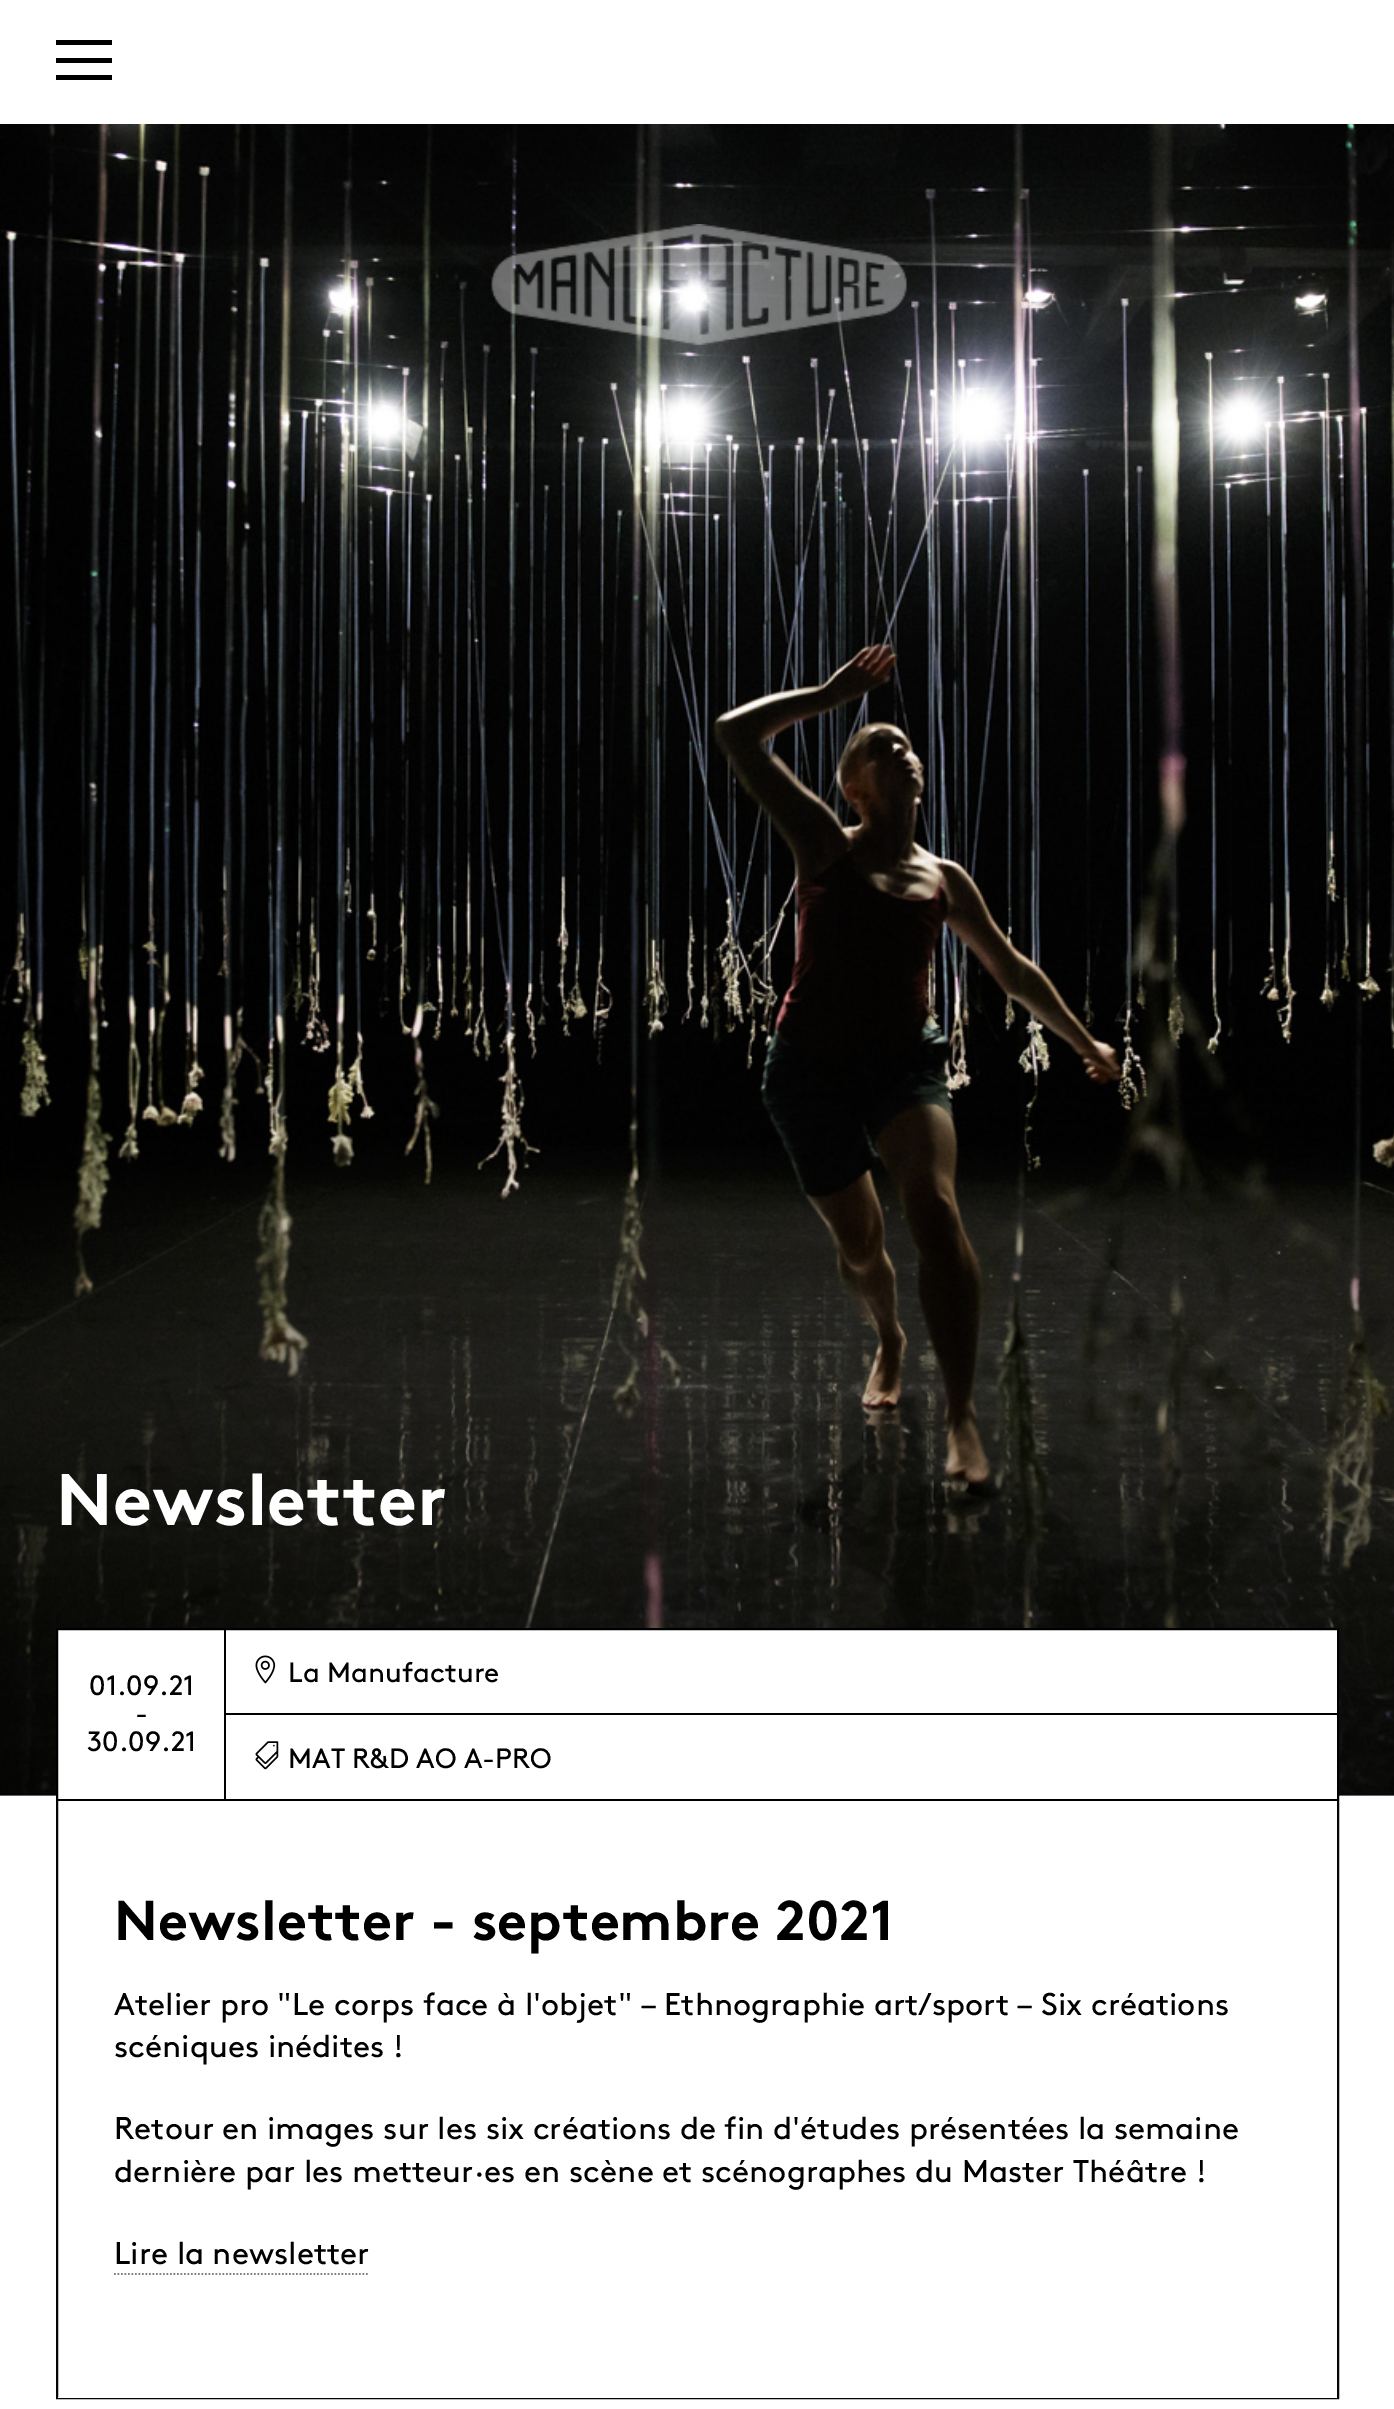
%!PS
<< /PageSize [1394 2409] >> setpagedevice
/rgb { dup -16 bitshift 255 div exch dup -8 bitshift 255 and 255 div exch 255 and 255 div setrgbcolor } def
/font { [ exch dup neg 0 0 3 -1 roll 0 0 ] selectfont } def
/text { moveto show } def
/picture { 5 dict begin { /h /w /y /x /name } { exch def } forall
  gsave x y translate w h scale
  w h 8 [w 0 0 h 0 0] name (r) file false 3 colorimage grestore end } def
0 2409 translate 1 -1 scale
4 setmiterlimit
/s1 { /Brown-Bold 72.75 font 16#FFFFFF rgb } def
/s2 { /Brown-Regular 28 font 16#000000 rgb } def
/s3 { /Brown-Bold 56 font 16#000000 rgb } def
/s4 { /Brown-Regular 31.5 font 16#000000 rgb } def
16#FFFFFF rgb
0 0 1394 2409 rectfill
16#000000 rgb
56 40 56 5 rectfill
56 58 56 5 rectfill
56 75 56 5 rectfill
(pic1.raw) 0 124 1394 1672 picture
(pic2.raw) 491 224 416 121 picture
(pic3.raw) 0 999 1394 797 picture
s1
(Newsletter) 56 1525 text
58 1630 1279 166 rectfill
16#050505 rgb
2 setlinewidth
57 1629 1281 769 rectstroke
16#000000 rgb
224 1628 1115 2 rectfill
224 1713 1115 2 rectfill
1337 1713 2 88 rectfill
1337 1628 2 87 rectfill
224 1799 1115 2 rectfill
224 1713 2 88 rectfill
224 1628 2 87 rectfill
(pic4.raw) 255 1655 21 29 picture
s2
(La Manufacture) 288 1682 text
56 1628 170 2 rectfill
56 1799 170 2 rectfill
56 1628 2 173 rectfill
(01.09.21) 89 1695 text
(-) 135 1723 text
(30.09.21) 87 1751 text
(pic5.raw) 255 1741 24 29 picture
(MAT R&D AO A-PRO) 288 1768 text
16#FFFFFF rgb
58 2397 1279 1 rectfill
s3
(Newsletter - septembre 2021) 114 1940 text
s4
(Atelier pro "Le corps face à l'objet" – Ethnographie art/sport – Six créations) 114 2015 text
(scéniques inédites !) 114 2057 text
(Retour en images sur les six créations de fin d'études présentées la semaine) 114 2139 text
(dernière par les metteur·es en scène et scénographes du Master Théâtre !) 114 2182 text
(Lire la newsletter) 114 2264 text
16#808080 rgb
1.8 setlinewidth
[1.75 1.75] 0 setdash
114 2274 moveto 369 2274 lineto stroke
showpage
